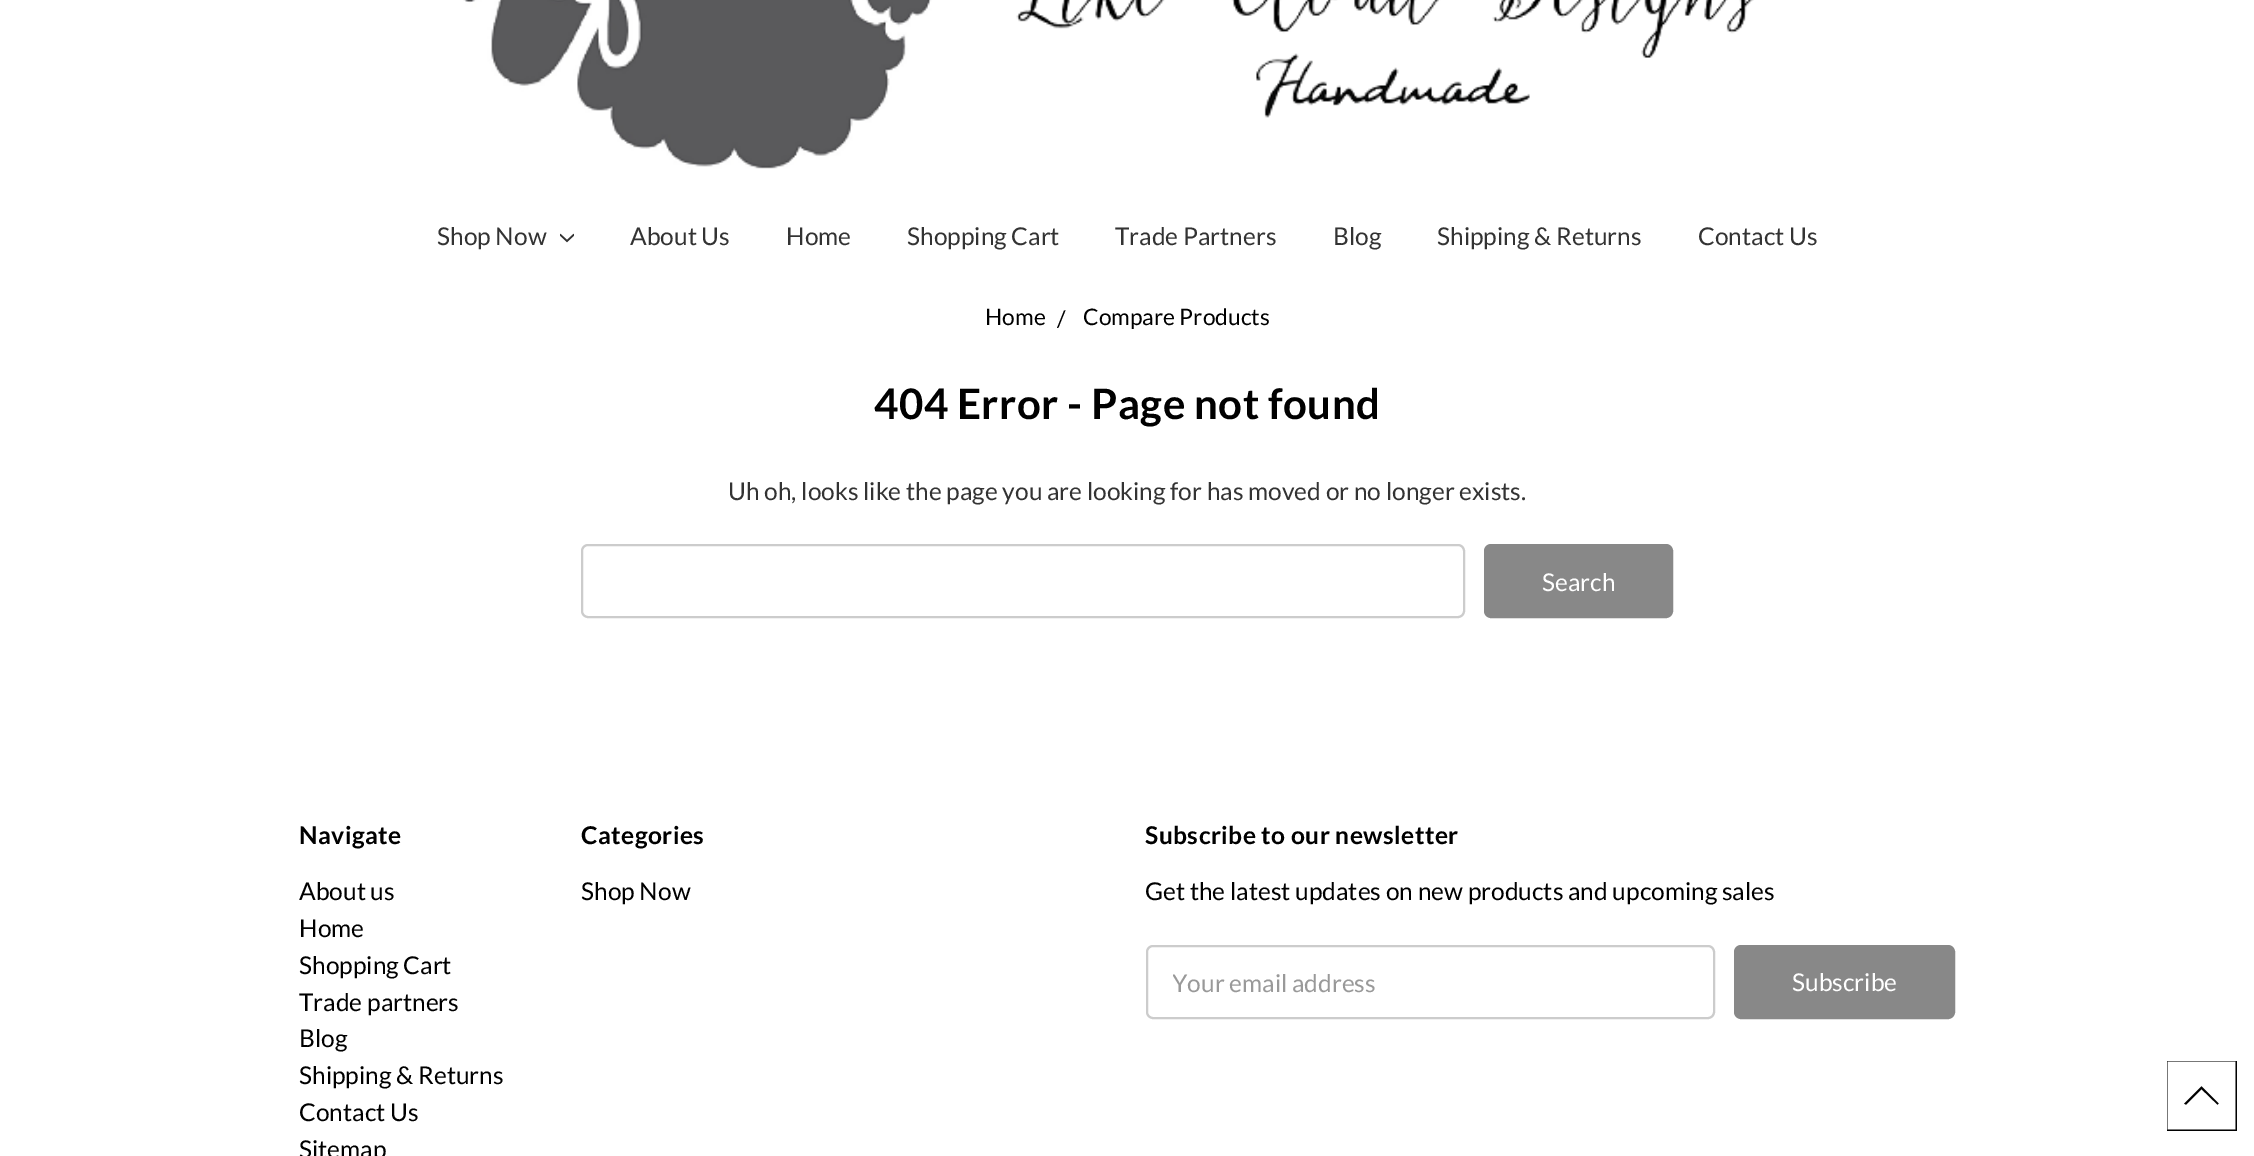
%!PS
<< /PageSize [2254 1156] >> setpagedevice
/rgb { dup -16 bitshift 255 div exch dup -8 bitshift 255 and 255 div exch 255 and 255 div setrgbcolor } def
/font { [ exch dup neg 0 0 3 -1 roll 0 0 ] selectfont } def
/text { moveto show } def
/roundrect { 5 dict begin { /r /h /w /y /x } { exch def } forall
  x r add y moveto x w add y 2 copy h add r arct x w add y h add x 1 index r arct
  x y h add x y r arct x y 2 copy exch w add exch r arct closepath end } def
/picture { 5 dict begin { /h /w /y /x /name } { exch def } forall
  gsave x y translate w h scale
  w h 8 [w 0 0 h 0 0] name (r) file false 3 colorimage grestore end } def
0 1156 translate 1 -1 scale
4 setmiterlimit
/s1 { /Lato-Regular 24.5 font 16#333333 rgb } def
/s2 { /Lato-Regular 22.75 font 16#000000 rgb } def
/s3 { /Lato-Regular 24.5 font 16#FFFFFF rgb } def
/s4 { /Lato-Regular 24.5 font 16#000000 rgb } def
/s5 { /Lato-Regular 24.5 font 16#999999 rgb } def
16#FFFFFF rgb
0 0 2254 1156 rectfill
(pic1.raw) 463 0 1291 169 picture
s1
(Shop Now) 437 245 text
(pic2.raw) 560 233 14 10 picture
(About Us) 630 245 text
(Home) 786 245 text
(Shopping Cart) 907 245 text
(Trade Partners) 1115 245 text
(Blog) 1333 245 text
(Shipping & Returns) 1437 245 text
(Contact Us) 1698 245 text
s2
(Home) 985 325 text
(/) 1057 327 text
(Compare Products) 1083 325 text
/Lato-Bold 42 font
874 419 moveto 0.45 0 (404 Error - Page not found) ashow
s1
(Uh oh, looks like the page you are looking for has moved or no longer exists.) 728 500 text
16#CCCCCC rgb
2 setlinewidth
582 545 882 72 6 roundrect stroke
16#888888 rgb
1485 545 187 72 6 roundrect gsave fill grestore
stroke
s3
(Search) 1542 591 text
/Lato-Bold 24.5 font
16#000000 rgb
299 844 moveto 0.45 0 (Navigate) ashow
s4
(About us) 299 900 text
(Home) 299 937 text
(Shopping Cart) 299 974 text
(Trade partners) 299 1011 text
(Blog) 299 1047 text
(Shipping & Returns) 299 1084 text
(Contact Us) 299 1121 text
(Sitemap) 299 1158 text
/Lato-Bold 24.5 font
581 844 moveto 0.45 0 (Categories) ashow
s4
(Shop Now) 581 900 text
/Lato-Bold 24.5 font
1145 844 moveto 0.45 0 (Subscribe to our newsletter) ashow
s4
(Get the latest updates on new products and upcoming sales) 1145 900 text
16#CCCCCC rgb
1147 946 567 72 6 roundrect stroke
gsave
1173 968 516 30 rectclip
s5
(Your email address) 1172 992 text
grestore
16#888888 rgb
1735 946 219 72 6 roundrect gsave fill grestore
stroke
s3
(Subscribe) 1792 991 text
16#010101 rgb
0.9 setlinewidth
2186 1104 moveto 2201.5 1088.5 lineto 2217.5 1104 lineto 2218 1103.5 lineto 2201.5 1087 lineto 2185 1103.5 lineto closepath stroke
gsave
2167 1061 70 70 rectclip
1.8 setlinewidth
2166.5 1060.5 moveto 2236.5 1060.5 lineto 2236.5 1130.5 lineto 2166.5 1130.5 lineto closepath stroke
grestore
showpage
